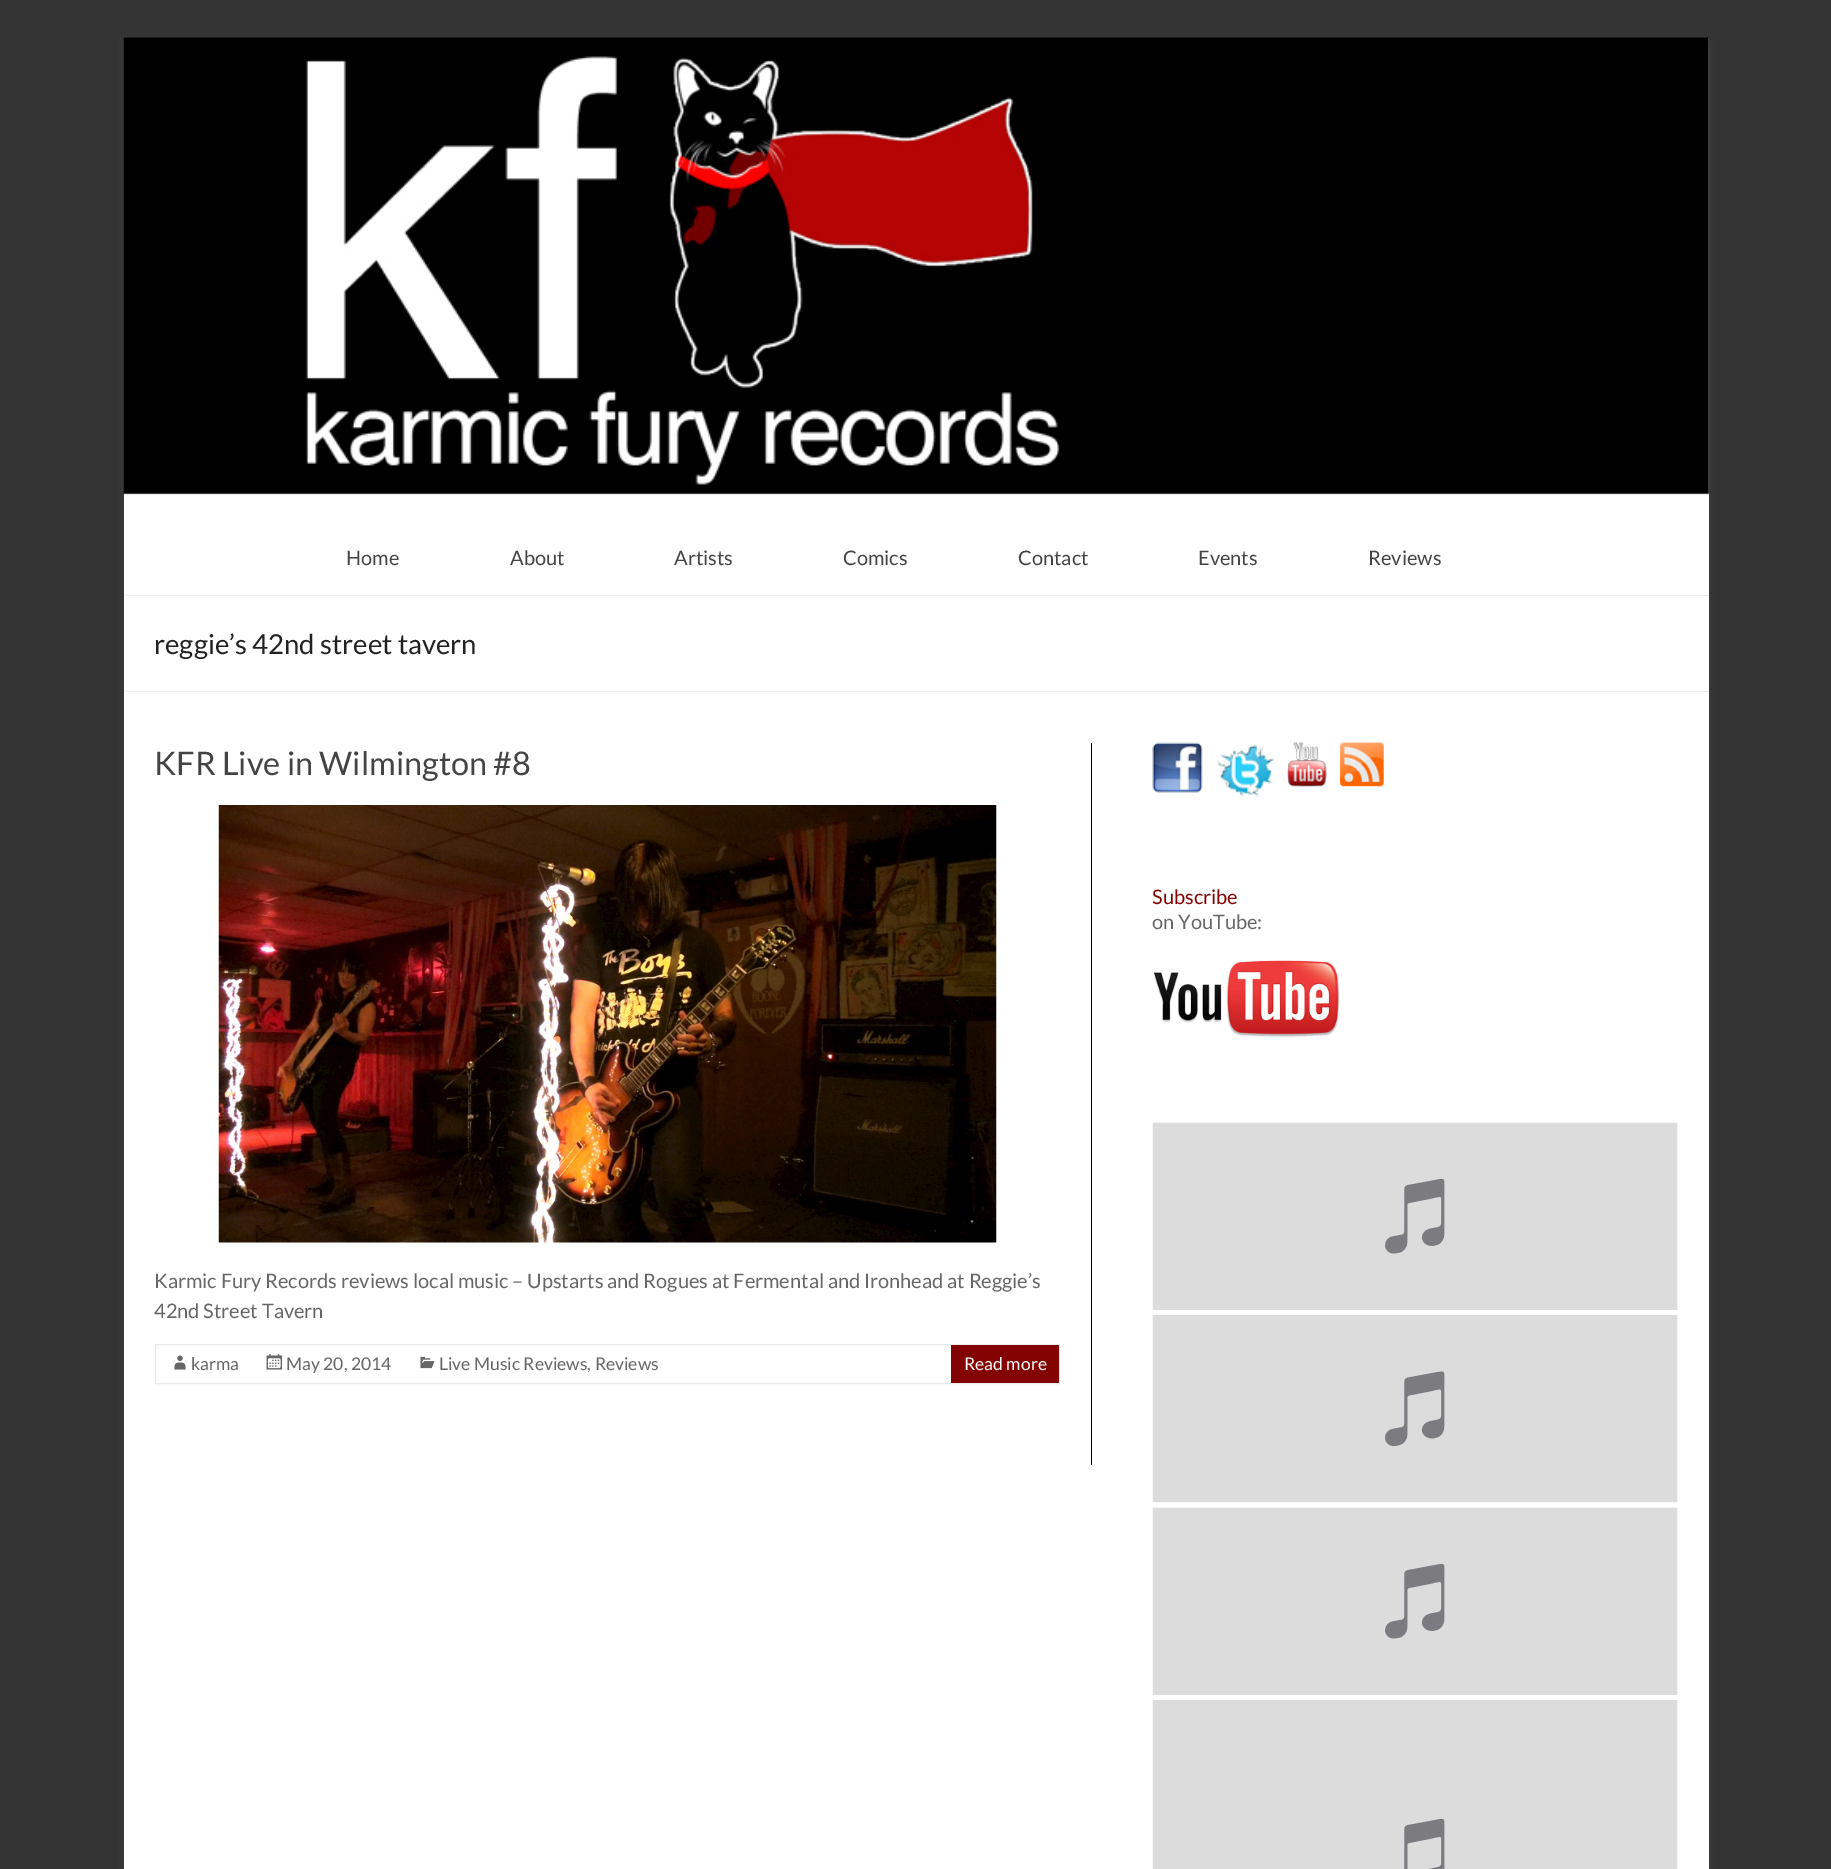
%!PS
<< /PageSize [1831 1869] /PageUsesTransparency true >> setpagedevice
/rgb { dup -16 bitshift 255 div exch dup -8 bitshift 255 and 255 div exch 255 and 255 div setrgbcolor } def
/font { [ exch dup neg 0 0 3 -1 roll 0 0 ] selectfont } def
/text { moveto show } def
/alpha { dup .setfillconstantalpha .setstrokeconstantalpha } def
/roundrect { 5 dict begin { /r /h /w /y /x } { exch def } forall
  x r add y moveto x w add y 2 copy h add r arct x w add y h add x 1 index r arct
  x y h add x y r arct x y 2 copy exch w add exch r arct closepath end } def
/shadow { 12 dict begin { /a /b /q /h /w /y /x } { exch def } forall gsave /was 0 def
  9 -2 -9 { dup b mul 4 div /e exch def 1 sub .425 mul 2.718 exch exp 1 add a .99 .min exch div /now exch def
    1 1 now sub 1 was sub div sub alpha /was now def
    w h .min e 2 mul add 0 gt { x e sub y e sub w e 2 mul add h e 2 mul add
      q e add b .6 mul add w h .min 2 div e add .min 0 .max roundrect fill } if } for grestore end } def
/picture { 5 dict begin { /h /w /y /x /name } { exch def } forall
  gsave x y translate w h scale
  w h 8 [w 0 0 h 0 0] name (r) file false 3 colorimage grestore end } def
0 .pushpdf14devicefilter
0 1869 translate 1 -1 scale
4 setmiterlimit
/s1 { /Lato-Regular 20 font 16#444444 rgb } def
/s2 { /Lato-Regular 27.5 font 16#222222 rgb } def
/s3 { /Lato-Regular 32.5 font 16#444444 rgb } def
/s4 { /Lato-Regular 20 font 16#666666 rgb } def
/s5 { /Lato-Regular 17.5 font 16#666666 rgb } def
/s6 { /Lato-Regular 17.5 font 16#FFFFFF rgb } def
/s7 { /Lato-Regular 20 font 16#830303 rgb } def
16#333333 rgb
0 0 1831 1869 rectfill
16#646464 rgb
124 40 1585 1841 0 4 0.3 shadow
16#FFFFFF rgb
124 38 1585 1831 rectfill
(pic1.raw) 123 37 1586 457 picture
16#EAEAEA rgb
124 494 1585 1 rectfill
124 595 1585 1 rectfill
s1
(Home) 346 565 text
(About) 510 565 text
(Artists) 674 565 text
(Comics) 843 565 text
(Contact) 1018 565 text
(Events) 1198 565 text
(Reviews) 1368 565 text
16#EAEAEA rgb
124 691 1585 1 rectfill
s2
(reggie’s 42nd street tavern) 154 654 text
16#000000 rgb
1091 743 1 722 rectfill
s3
(KFR Live in Wilmington #8) 154 775 text
(pic2.raw) 218 805 779 438 picture
s4
(Karmic Fury Records reviews local music – Upstarts and Rogues at Fermental and Ironhead at Reggie’s) 154 1288 text
(42nd Street Tavern) 154 1318 text
16#EAEAEA rgb
155.5 1344.5 904 39 rectstroke
(pic3.raw) 174 1355 12 15 picture
s5
(karma) 191 1370 text
(pic4.raw) 266 1354 17 16 picture
(May 20, 2014) 286 1370 text
(pic5.raw) 420 1356 15 13 picture
(Live Music Reviews, Reviews) 439 1370 text
16#830303 rgb
951 1345 108 38 rectfill
s6
(Read more) 964 1370 text
(pic6.raw) 1152 742 51 51 picture
(pic7.raw) 1217 745 57 52 picture
(pic8.raw) 1287 742 40 45 picture
(pic9.raw) 1340 742 44 45 picture
s7
(Subscribe) 1152 904 text
s4
(on YouTube:) 1152 929 text
(pic10.raw) 1153 960 187 77 picture
(pic11.raw) 1152 1122 526 188 picture
(pic12.raw) 1152 1315 526 188 picture
(pic11.raw) 1152 1507 526 188 picture
(pic13.raw) 1152 1700 526 169 picture
.poppdf14devicefilter showpage
